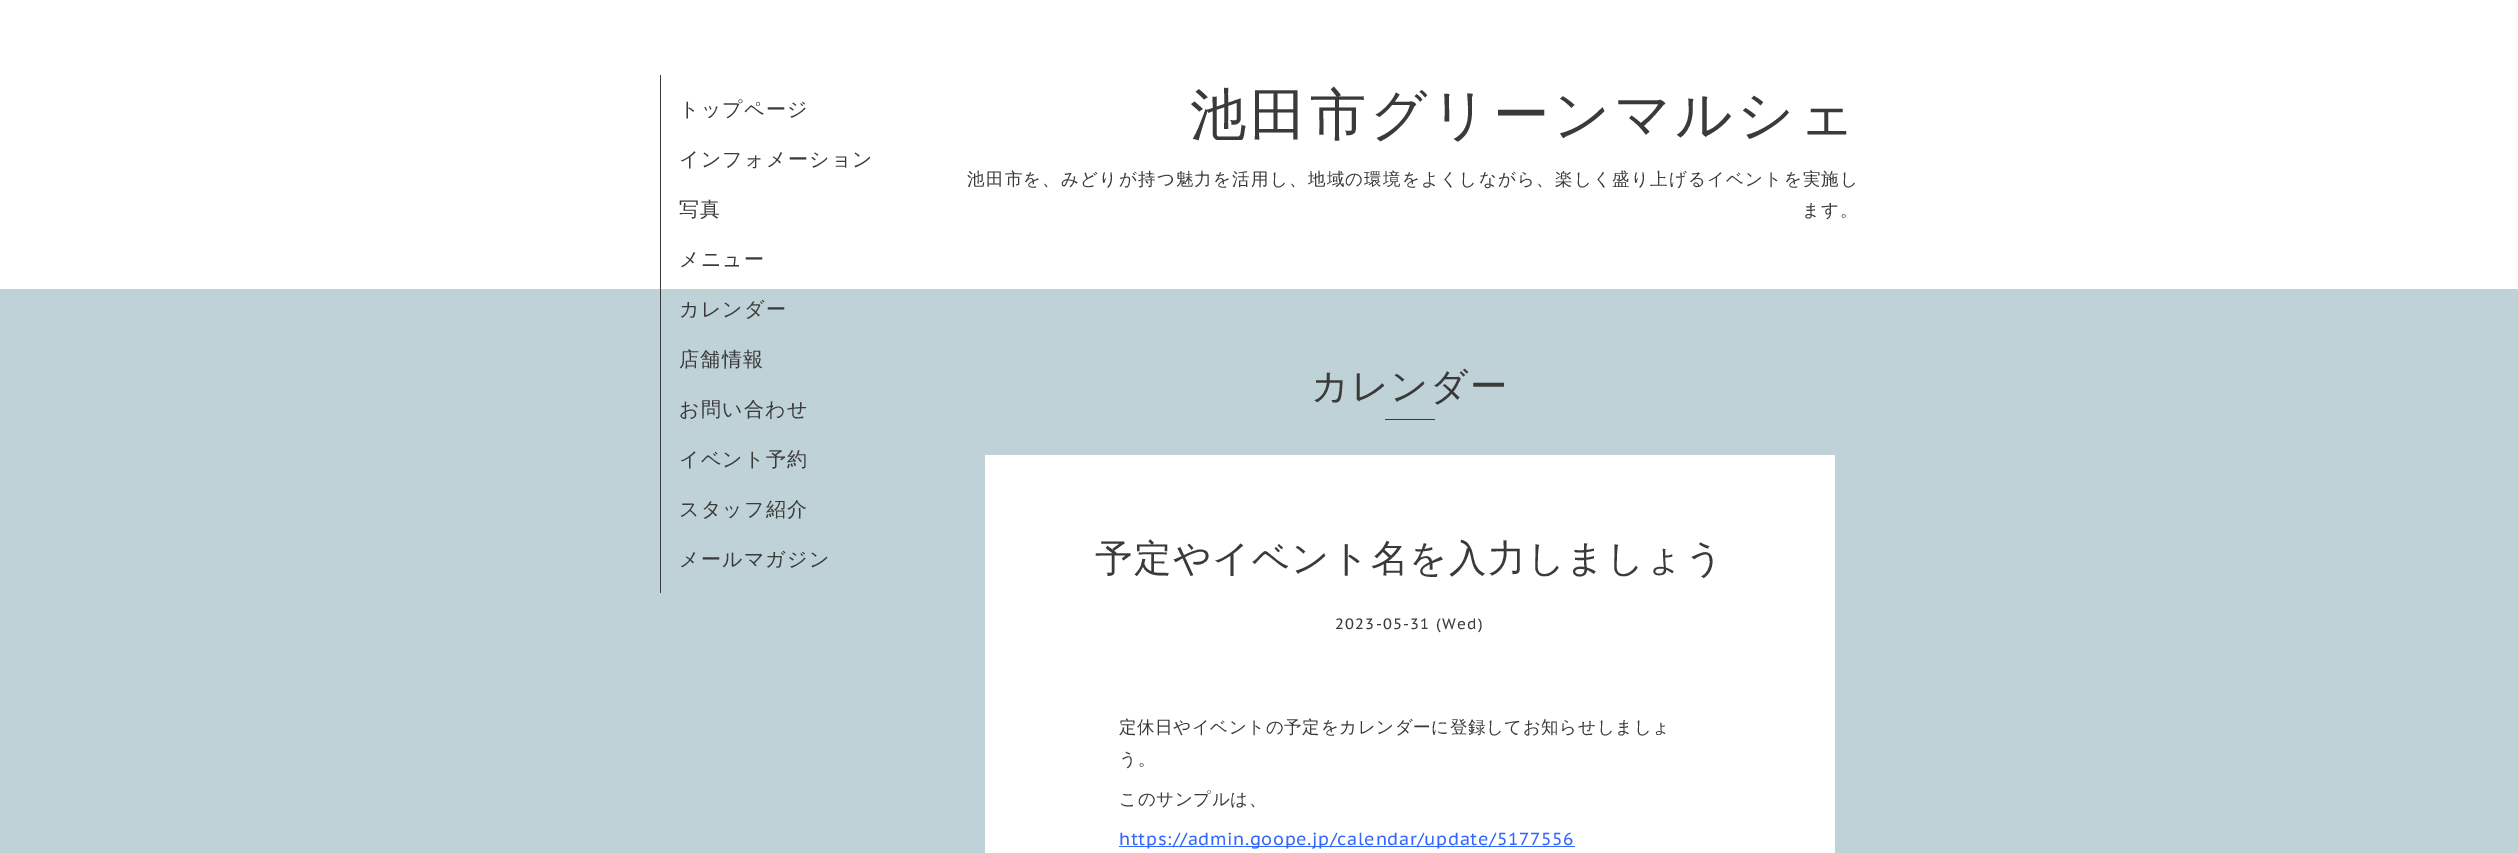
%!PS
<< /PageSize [2518 853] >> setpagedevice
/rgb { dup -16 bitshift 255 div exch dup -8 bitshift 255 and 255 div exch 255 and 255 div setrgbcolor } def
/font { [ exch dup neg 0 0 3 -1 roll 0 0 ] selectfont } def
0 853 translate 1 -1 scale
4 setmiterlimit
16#FFFFFF rgb
0 0 2518 853 rectfill
16#BFD2D8 rgb
0 289 2518 564 rectfill
16#3A3A3A rgb
660 75 1 518 rectfill
/WenQuanYiZenHei-Medium 20 font
679 116 moveto 1.25 0 (トップページ) ashow
679 166 moveto 1.25 0 (インフォメーション) ashow
679 216 moveto 1.25 0 (写真) ashow
679 266 moveto 1.25 0 (メニュー) ashow
679 316 moveto 1.25 0 (カレンダー) ashow
679 366 moveto 1.25 0 (店舗情報) ashow
679 416 moveto 1.25 0 (お問い合わせ) ashow
679 466 moveto 1.25 0 (イベント予約) ashow
679 516 moveto 1.25 0 (スタッフ紹介) ashow
679 566 moveto 1.25 0 (メールマガジン) ashow
/WenQuanYiZenHei-Medium 56.25 font
1190 134 moveto 3.75 0 (池田市グリーンマルシェ) ashow
/WenQuanYiZenHei-Medium 17.5 font
967 185 moveto 1.25 0 (池田市を、みどりが持つ魅力を活用し、地域の環境をよくしながら、楽しく盛り上げるイベントを実施し) ashow
1802 216 moveto 1.25 0 (ます。) ashow
/WenQuanYiZenHei-Medium 37.5 font
1311 399 moveto 1.25 0 (カレンダー) ashow
1385 419 50 1 rectfill
16#FFFFFF rgb
985 455 850 398 rectfill
16#3A3A3A rgb
1095 571 moveto 1.25 0 (予定やイベント名を入力しましょう) ashow
/PTSansCaption-Regular 15 font
1335 629 moveto 1.25 0 (2023-05-31 \(Wed\)) ashow
/WenQuanYiZenHei-Medium 17.5 font
1119 733 moveto 0.6 0 (定休日やイベントの予定をカレンダーに登録してお知らせしましょ) ashow
1119 765 moveto 0.6 0 (う。) ashow
1119 805 moveto 0.6 0 (このサンプルは、) ashow
16#3366FF rgb
1119 846 456 1 rectfill
/PTSansCaption-Regular 17.5 font
1119 845 moveto 0.6 0 (https://admin.goope.jp/calendar/update/5177556) ashow
showpage
